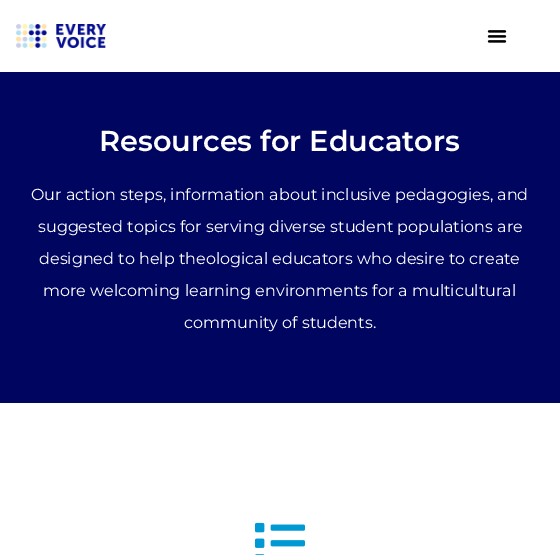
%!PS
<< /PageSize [560 555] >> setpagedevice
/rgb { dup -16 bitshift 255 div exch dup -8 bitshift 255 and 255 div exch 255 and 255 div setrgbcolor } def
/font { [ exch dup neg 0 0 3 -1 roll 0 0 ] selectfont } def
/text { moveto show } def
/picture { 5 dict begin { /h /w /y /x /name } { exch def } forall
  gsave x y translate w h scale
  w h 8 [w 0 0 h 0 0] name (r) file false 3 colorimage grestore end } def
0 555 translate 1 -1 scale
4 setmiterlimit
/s1 { /Montserrat-SemiBold 28.75 font 16#FFFFFF rgb } def
/s2 { /Montserrat-Regular 16 font 16#FFFFFF rgb } def
16#FFFFFF rgb
0 0 560 555 rectfill
(pic1.raw) 16 24 90 24 picture
(pic2.raw) 487 30 20 13 picture
16#00055F rgb
0 72 560 331 rectfill
s1
(Resources for Educators) 99 151 text
s2
(Our action steps, information about inclusive pedagogies, and) 31 200 text
(suggested topics for serving diverse student populations are) 38 232 text
(designed to help theological educators who desire to create) 39 264 text
(more welcoming learning environments for a multicultural) 43 296 text
(community of students.) 184 328 text
(pic3.raw) 255 522 50 33 picture
showpage
